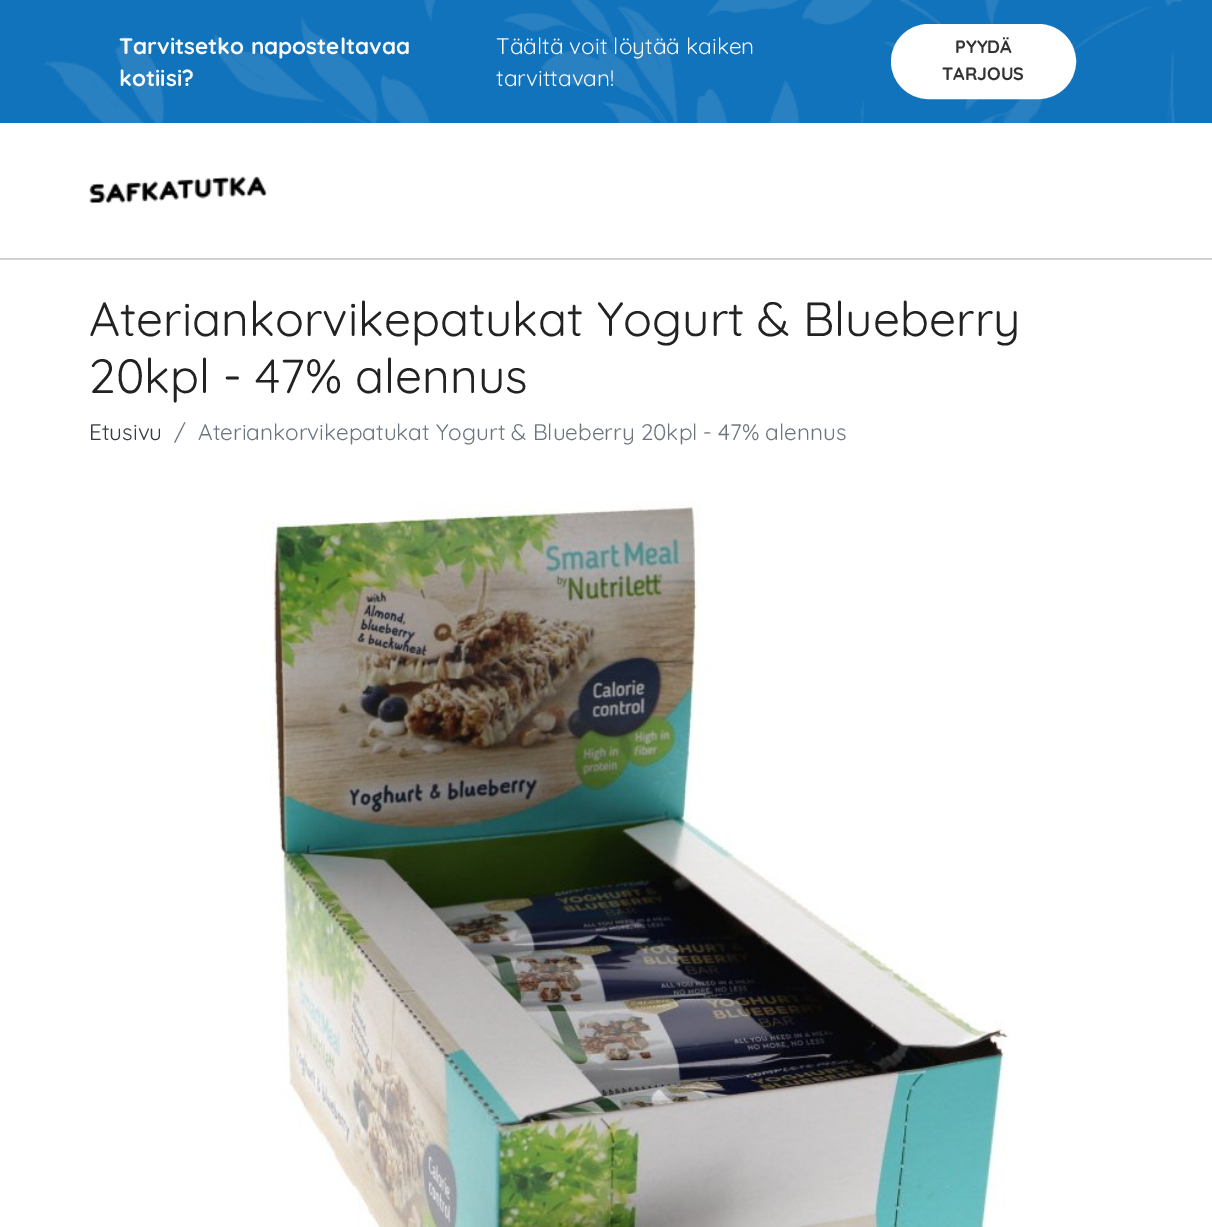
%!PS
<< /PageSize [1212 1227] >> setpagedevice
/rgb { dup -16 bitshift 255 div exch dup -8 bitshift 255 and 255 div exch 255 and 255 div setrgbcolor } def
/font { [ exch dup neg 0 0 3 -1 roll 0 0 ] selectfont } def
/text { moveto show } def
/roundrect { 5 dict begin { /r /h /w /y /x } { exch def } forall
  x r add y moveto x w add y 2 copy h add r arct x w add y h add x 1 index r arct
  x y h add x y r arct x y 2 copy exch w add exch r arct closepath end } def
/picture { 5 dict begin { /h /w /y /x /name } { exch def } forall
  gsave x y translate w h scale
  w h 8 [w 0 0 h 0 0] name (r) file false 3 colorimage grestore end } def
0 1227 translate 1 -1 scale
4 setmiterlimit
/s1 { /Quicksand-Bold 22.5 font 16#F8F9FA rgb } def
/s2 { /Quicksand-Regular 22.5 font 16#F8F9FA rgb } def
/s3 { /Quicksand-Bold 18 font 16#333333 rgb } def
/s4 { /Quicksand-Regular 48 font 16#222222 rgb } def
/s5 { /Quicksand-Regular 22.5 font 16#343A40 rgb } def
/s6 { /Quicksand-Regular 22.5 font 16#6C757D rgb } def
16#FFFFFF rgb
0 0 1212 1227 rectfill
16#D1D1D1 rgb
0 258 1212 2 rectfill
16#1173BB rgb
0 0 1212 123 rectfill
(pic1.raw) 44 0 1139 123 picture
s1
(Tarvitsetko naposteltavaa) 119 54 text
(kotiisi?) 119 86 text
s2
(Täältä voit löytää kaiken) 496 54 text
(tarvittavan!) 496 86 text
16#FFFFFF rgb
892 25 183 73 36.5 roundrect gsave fill grestore
2 setlinewidth
stroke
s3
(PYYDÄ) 955 53 text
(TARJOUS) 942 80 text
(pic2.raw) 89 176 178 28 picture
s4
(Ateriankorvikepatukat Yogurt & Blueberry) 89 336 text
(20kpl - 47% alennus) 89 393 text
s5
(Etusivu) 89 440 text
s6
(/) 174 440 text
(Ateriankorvikepatukat Yogurt & Blueberry 20kpl - 47% alennus) 198 440 text
(pic3.raw) 260 501 751 726 picture
showpage
